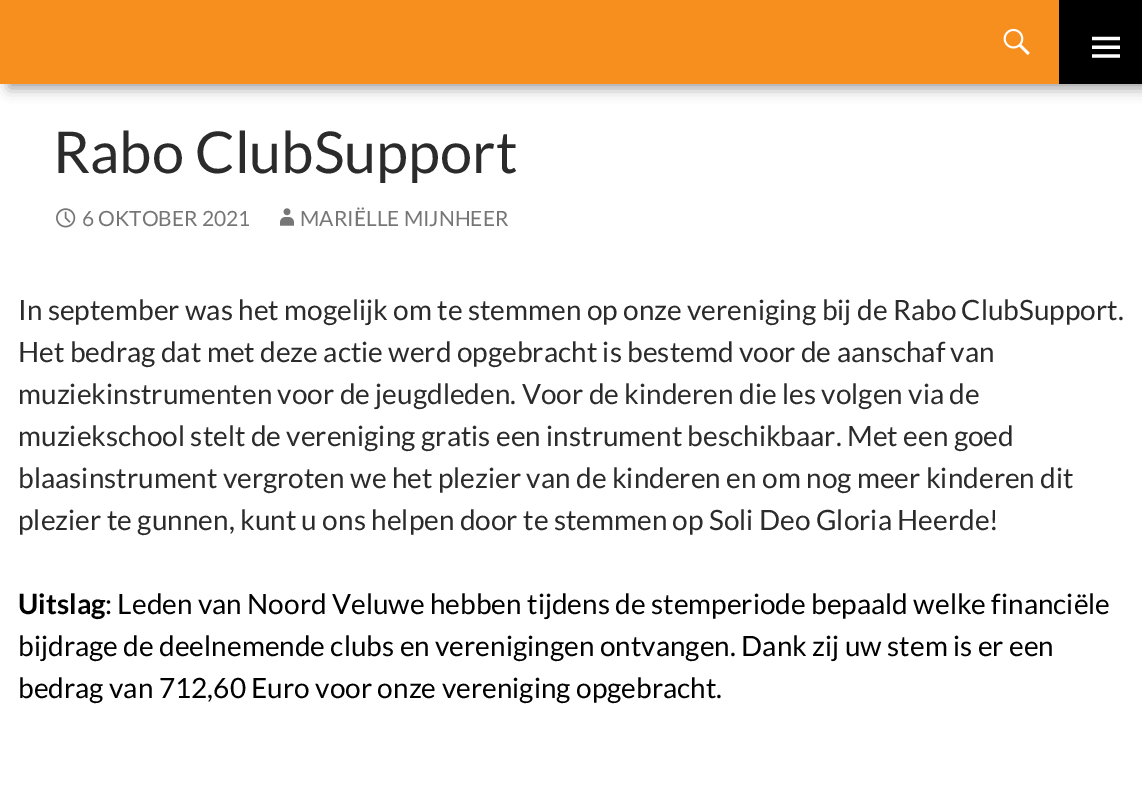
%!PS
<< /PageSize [1142 789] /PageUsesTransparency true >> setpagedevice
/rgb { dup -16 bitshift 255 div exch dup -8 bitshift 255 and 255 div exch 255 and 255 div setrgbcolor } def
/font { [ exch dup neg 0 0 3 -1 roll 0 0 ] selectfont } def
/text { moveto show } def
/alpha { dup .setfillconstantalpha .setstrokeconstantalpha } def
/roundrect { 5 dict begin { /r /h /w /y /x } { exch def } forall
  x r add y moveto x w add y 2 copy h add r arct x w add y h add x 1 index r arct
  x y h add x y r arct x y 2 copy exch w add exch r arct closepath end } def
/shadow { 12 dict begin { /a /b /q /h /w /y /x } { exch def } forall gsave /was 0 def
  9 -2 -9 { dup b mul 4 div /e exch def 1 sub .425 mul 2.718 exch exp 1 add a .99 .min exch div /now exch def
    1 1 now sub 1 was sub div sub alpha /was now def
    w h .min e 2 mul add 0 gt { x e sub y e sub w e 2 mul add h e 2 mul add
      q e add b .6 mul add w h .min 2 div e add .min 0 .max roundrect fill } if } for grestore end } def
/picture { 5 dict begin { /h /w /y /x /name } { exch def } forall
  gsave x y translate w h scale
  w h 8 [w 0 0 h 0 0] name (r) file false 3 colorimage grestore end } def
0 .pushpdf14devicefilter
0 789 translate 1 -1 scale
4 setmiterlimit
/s1 { /Lato-Regular 57.75 font 16#2B2B2B rgb } def
/s2 { /Lato-Regular 21 font 16#767676 rgb } def
/s3 { /Lato-Regular 28 font 16#2B2B2B rgb } def
/s4 { /Lato-Bold 28 font 16#000000 rgb } def
/s5 { /Lato-Regular 28 font 16#000000 rgb } def
16#FFFFFF rgb
0 0 1142 789 rectfill
16#999999 rgb
9 11 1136 77 0 7 1 shadow
16#F78F1E rgb
0 0 1059 84 rectfill
(pic1.raw) 1003 28 27 27 picture
16#000000 rgb
1059 0 83 84 rectfill
(pic2.raw) 1092 36 28 22 picture
s1
(Rabo ClubSupport) 53 173 text
(pic3.raw) 56 208 20 20 picture
s2
(6 OKTOBER 2021) 82 226 text
(pic4.raw) 280 208 14 18 picture
(MARIËLLE MIJNHEER) 300 226 text
s3
(In september was het mogelijk om te stemmen op onze vereniging bij de Rabo ClubSupport.) 18 320 text
(Het bedrag dat met deze actie werd opgebracht is bestemd voor de aanschaf van) 18 362 text
(muziekinstrumenten voor de jeugdleden. Voor de kinderen die les volgen via de) 18 404 text
(muziekschool stelt de vereniging gratis een instrument beschikbaar. Met een goed) 18 446 text
(blaasinstrument vergroten we het plezier van de kinderen en om nog meer kinderen dit) 18 488 text
(plezier te gunnen, kunt u ons helpen door te stemmen op Soli Deo Gloria Heerde!) 18 530 text
s4
(Uitslag) 18 614 text
s5
(: Leden van Noord Veluwe hebben tijdens de stemperiode bepaald welke financiële) 105 614 text
(bijdrage de deelnemende clubs en verenigingen ontvangen. Dank zij uw stem is er een) 18 656 text
(bedrag van 712,60 Euro voor onze vereniging opgebracht.) 18 698 text
.poppdf14devicefilter showpage
